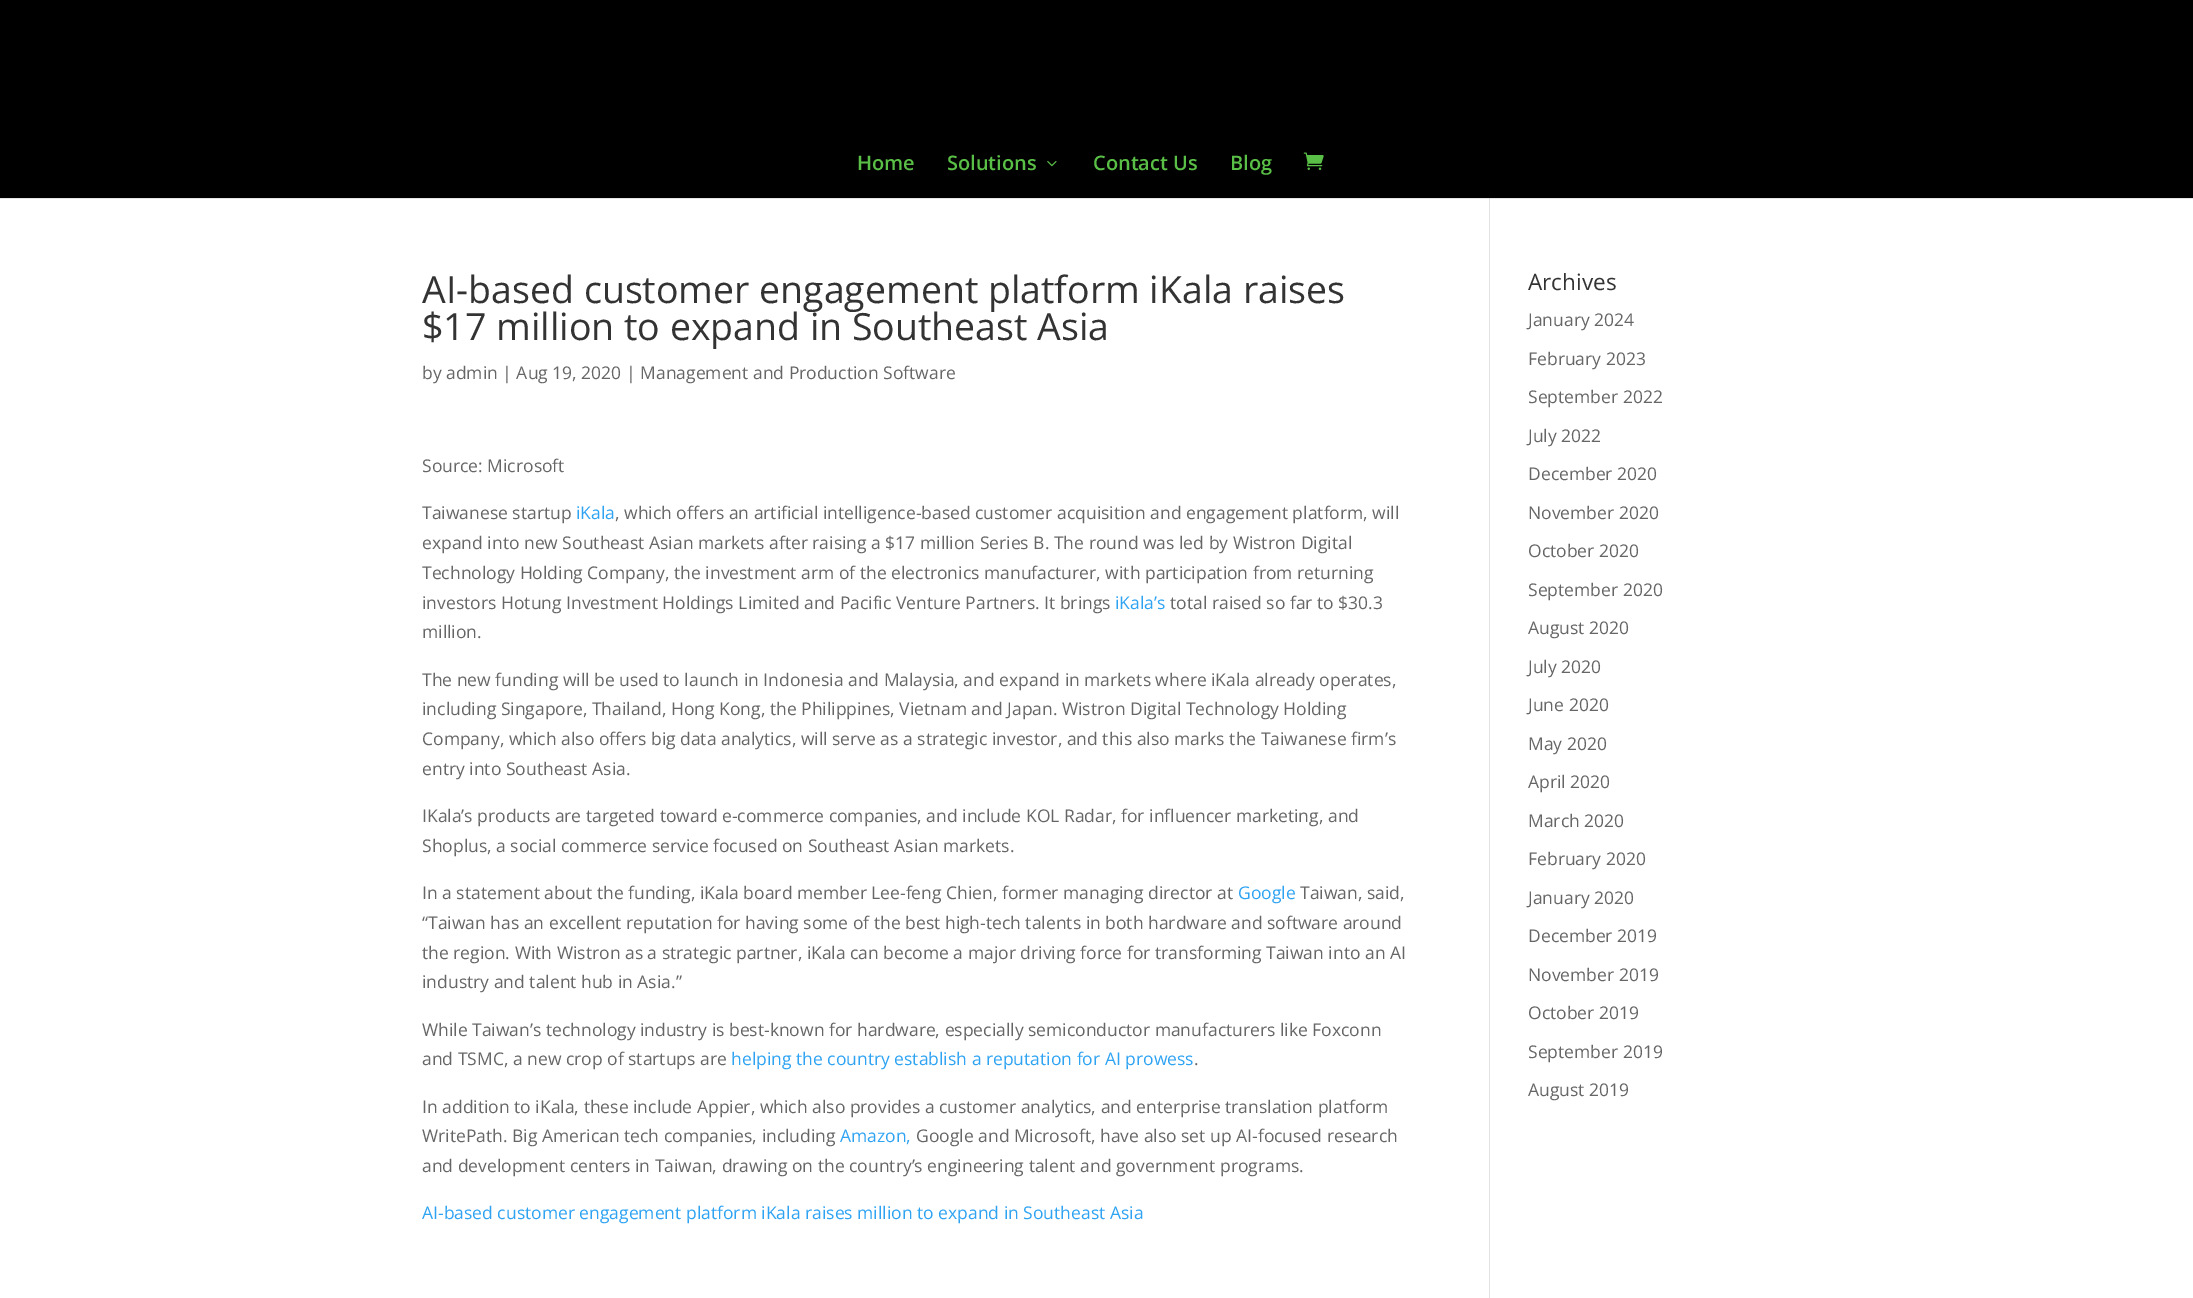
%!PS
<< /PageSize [2193 1298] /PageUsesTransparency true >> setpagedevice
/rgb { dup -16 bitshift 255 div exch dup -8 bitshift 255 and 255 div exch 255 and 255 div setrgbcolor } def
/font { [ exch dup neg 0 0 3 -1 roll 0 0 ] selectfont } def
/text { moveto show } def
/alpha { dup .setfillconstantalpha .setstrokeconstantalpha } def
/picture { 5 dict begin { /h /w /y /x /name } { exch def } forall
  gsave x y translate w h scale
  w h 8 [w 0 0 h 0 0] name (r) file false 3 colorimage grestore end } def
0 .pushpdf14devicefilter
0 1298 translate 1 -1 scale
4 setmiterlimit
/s1 { /OpenSans-SemiBold 20 font 16#5ABF46 rgb } def
/s2 { /OpenSans-Regular 37.5 font 16#333333 rgb } def
/s3 { /OpenSans-Regular 17.5 font 16#666666 rgb } def
/s4 { /OpenSans-Regular 17.5 font 16#2EA3F2 rgb } def
/s5 { /OpenSans-Regular 22.5 font 16#333333 rgb } def
16#FFFFFF rgb
0 0 2193 1298 rectfill
16#E2E2E2 rgb
1489 198 1 1100 rectfill
0.1 alpha
16#000000 rgb
0 198 moveto 0 199 lineto 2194 199 lineto 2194 1 lineto 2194 198 lineto closepath fill
1 alpha
0 0 2193 198 rectfill
s1
(Home) 857 170 text
(Solutions) 947 170 text
(pic1.raw) 1047 161 10 6 picture
(Contact Us) 1093 170 text
(Blog) 1230 170 text
(pic2.raw) 1303 152 21 18 picture
s2
(AI-based customer engagement platform iKala raises) 422 303 text
($17 million to expand in Southeast Asia) 422 340 text
s3
(by admin | Aug 19, 2020 | Management and Production Software) 422 379 text
(Source: Microsoft) 422 472 text
(Taiwanese startup) 422 519 text
s4
(iKala) 576 519 text
s3
(, which offers an artificial intelligence-based customer acquisition and engagement platform, will) 615 519 text
(expand into new Southeast Asian markets after raising a $17 million Series B. The round was led by Wistron Digital) 422 549 text
(Technology Holding Company, the investment arm of the electronics manufacturer, with participation from returning) 422 579 text
(investors Hotung Investment Holdings Limited and Pacific Venture Partners. It brings) 422 609 text
s4
(iKala’s) 1115 609 text
s3
(total raised so far to $30.3) 1170 609 text
(million.) 422 638 text
(The new funding will be used to launch in Indonesia and Malaysia, and expand in markets where iKala already operates,) 422 686 text
(including Singapore, Thailand, Hong Kong, the Philippines, Vietnam and Japan. Wistron Digital Technology Holding) 422 715 text
(Company, which also offers big data analytics, will serve as a strategic investor, and this also marks the Taiwanese firm’s) 422 745 text
(entry into Southeast Asia.) 422 775 text
(IKala’s products are targeted toward e-commerce companies, and include KOL Radar, for influencer marketing, and) 422 822 text
(Shoplus, a social commerce service focused on Southeast Asian markets.) 422 852 text
(In a statement about the funding, iKala board member Lee-feng Chien, former managing director at) 422 899 text
s4
(Google) 1238 899 text
s3
(Taiwan, said,) 1300 899 text
(“Taiwan has an excellent reputation for having some of the best high-tech talents in both hardware and software around) 422 929 text
(the region. With Wistron as a strategic partner, iKala can become a major driving force for transforming Taiwan into an AI) 422 959 text
(industry and talent hub in Asia.”) 422 988 text
(While Taiwan’s technology industry is best-known for hardware, especially semiconductor manufacturers like Foxconn) 422 1036 text
(and TSMC, a new crop of startups are) 422 1065 text
s4
(helping the country establish a reputation for AI prowess) 731 1065 text
s3
(.) 1194 1065 text
(In addition to iKala, these include Appier, which also provides a customer analytics, and enterprise translation platform) 422 1113 text
(WritePath. Big American tech companies, including) 422 1142 text
s4
(Amazon,) 840 1142 text
s3
(Google and Microsoft, have also set up AI-focused research) 916 1142 text
(and development centers in Taiwan, drawing on the country’s engineering talent and government programs.) 422 1172 text
s4
(AI-based customer engagement platform iKala raises million to expand in Southeast Asia) 422 1219 text
s5
(Archives) 1528 290 text
s3
(January 2024) 1528 326 text
(February 2023) 1528 365 text
(September 2022) 1528 403 text
(July 2022) 1528 442 text
(December 2020) 1528 480 text
(November 2020) 1528 519 text
(October 2020) 1528 557 text
(September 2020) 1528 596 text
(August 2020) 1528 634 text
(July 2020) 1528 673 text
(June 2020) 1528 711 text
(May 2020) 1528 750 text
(April 2020) 1528 788 text
(March 2020) 1528 827 text
(February 2020) 1528 865 text
(January 2020) 1528 904 text
(December 2019) 1528 942 text
(November 2019) 1528 981 text
(October 2019) 1528 1019 text
(September 2019) 1528 1058 text
(August 2019) 1528 1096 text
.poppdf14devicefilter showpage
